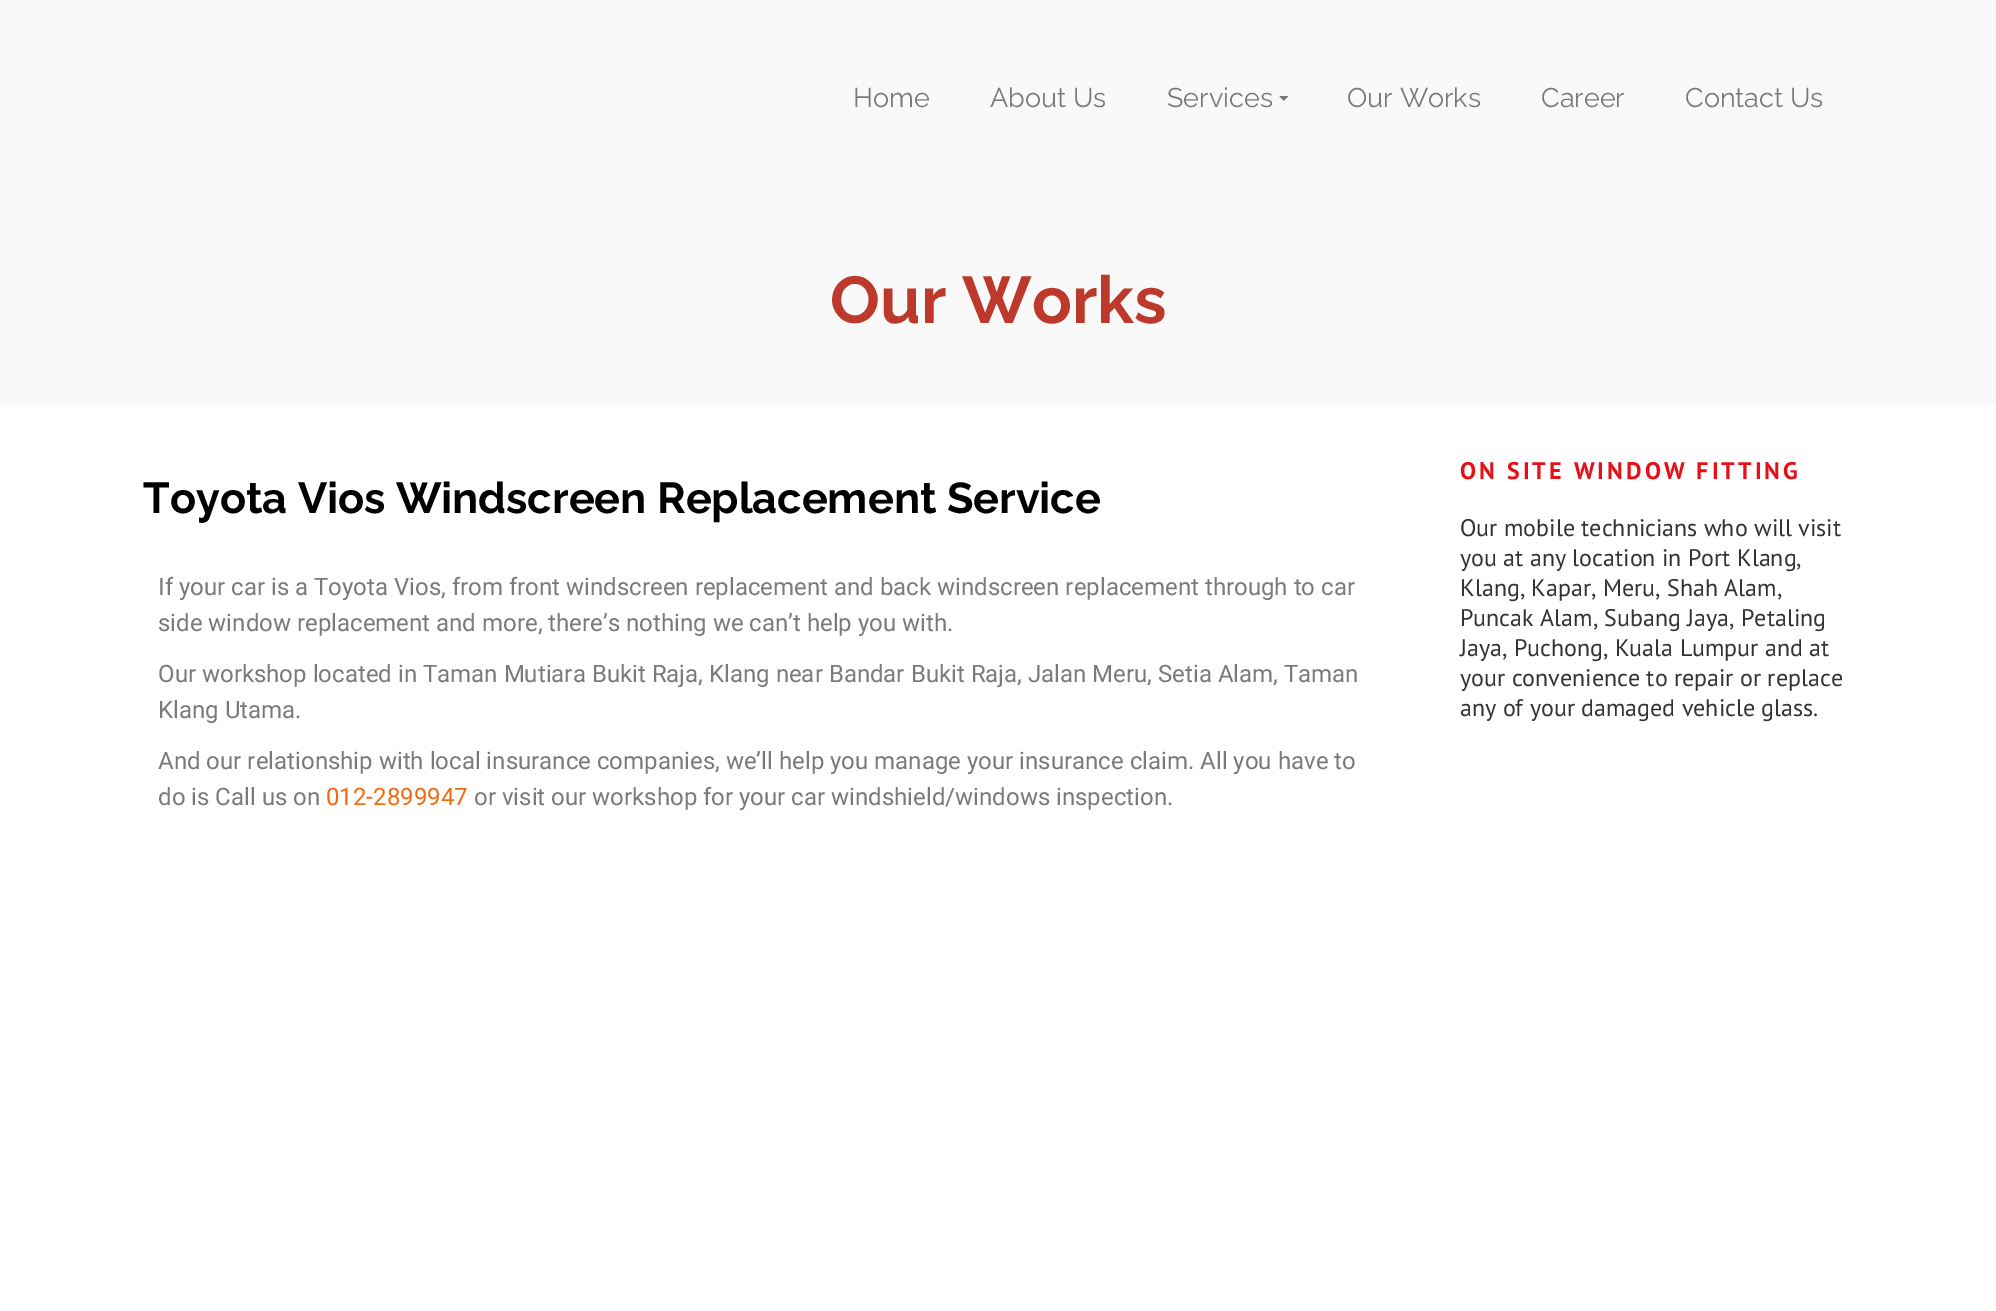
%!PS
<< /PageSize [1996 1311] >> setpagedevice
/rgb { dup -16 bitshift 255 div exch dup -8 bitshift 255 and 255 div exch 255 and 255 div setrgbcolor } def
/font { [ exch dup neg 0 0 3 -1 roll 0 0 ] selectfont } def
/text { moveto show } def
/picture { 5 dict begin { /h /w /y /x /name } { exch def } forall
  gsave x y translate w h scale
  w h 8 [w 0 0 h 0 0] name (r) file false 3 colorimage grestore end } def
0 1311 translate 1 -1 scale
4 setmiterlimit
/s1 { /Raleway-Regular 27 font 16#7A7A7A rgb } def
/s2 { /Raleway-Bold 66 font 16#BC392B rgb } def
/s3 { /Raleway-Bold 43.2 font 16#000000 rgb } def
/s4 { /Roboto-Regular 24 font 16#7A7A7A rgb } def
/s5 { /Roboto-Regular 24 font 16#F3690E rgb } def
/s6 { /PTSans-Regular 24 font 16#333333 rgb } def
16#FFFFFF rgb
0 0 1996 1311 rectfill
16#F9F9F9 rgb
0 0 1996 405 rectfill
s1
(Home) 853 107 text
(About Us) 990 107 text
(Services) 1167 107 text
(pic1.raw) 1279 96 9 5 picture
(Our Works) 1347 107 text
(Career) 1541 107 text
(Contact Us) 1685 107 text
s2
(Our Works) 830 323 text
s3
(Toyota Vios Windscreen Replacement Service) 143 513 text
s4
(If your car is a Toyota Vios, from front windscreen replacement and back windscreen replacement through to car) 158 595 text
(side window replacement and more, there’s nothing we can’t help you with.) 158 631 text
(Our workshop located in Taman Mutiara Bukit Raja, Klang near Bandar Bukit Raja, Jalan Meru, Setia Alam, Taman) 158 682 text
(Klang Utama.) 158 718 text
(And our relationship with local insurance companies, we’ll help you manage your insurance claim. All you have to) 158 769 text
(do is Call us on) 158 805 text
s5
(012-2899947) 326 805 text
s4
(or visit our workshop for your car windshield/windows inspection.) 474 805 text
/PTSans-Bold 24 font
16#E41119 rgb
1460 479 moveto 3 0 (ON SITE WINDOW FITTING) ashow
s6
(Our mobile technicians who will visit) 1460 536 text
(you at any location in Port Klang,) 1460 566 text
(Klang, Kapar, Meru, Shah Alam,) 1460 596 text
(Puncak Alam, Subang Jaya, Petaling) 1460 626 text
(Jaya, Puchong, Kuala Lumpur and at) 1460 656 text
(your convenience to repair or replace) 1460 686 text
(any of your damaged vehicle glass.) 1460 716 text
showpage
